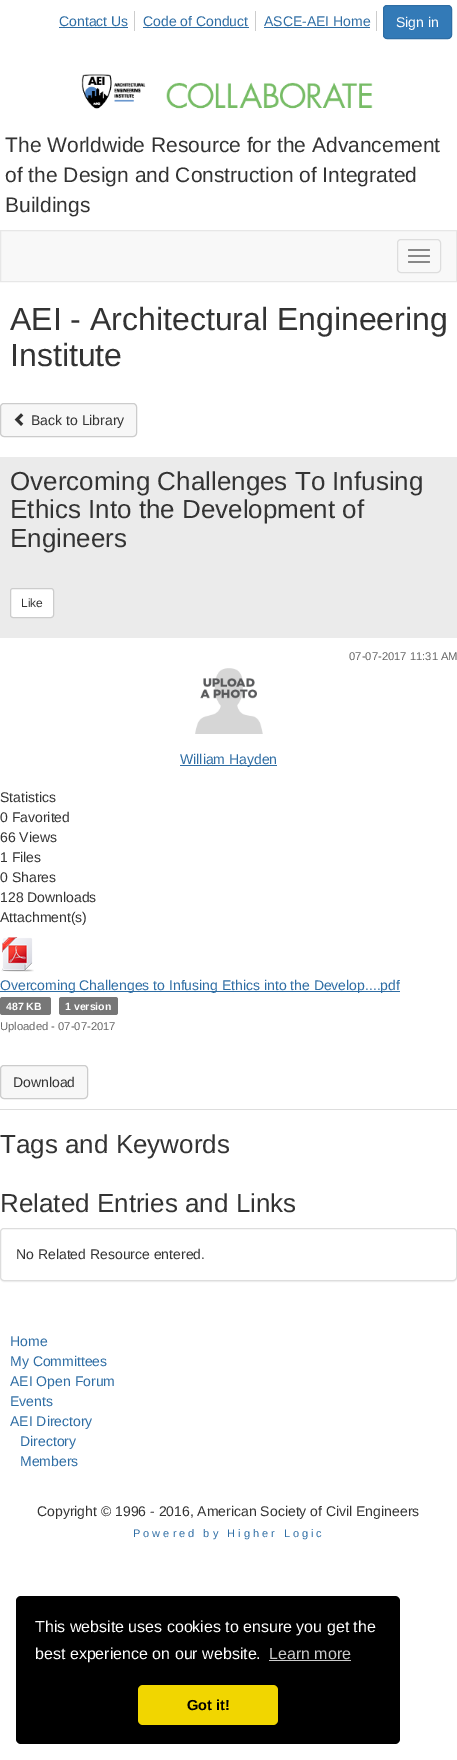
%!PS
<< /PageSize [457 1760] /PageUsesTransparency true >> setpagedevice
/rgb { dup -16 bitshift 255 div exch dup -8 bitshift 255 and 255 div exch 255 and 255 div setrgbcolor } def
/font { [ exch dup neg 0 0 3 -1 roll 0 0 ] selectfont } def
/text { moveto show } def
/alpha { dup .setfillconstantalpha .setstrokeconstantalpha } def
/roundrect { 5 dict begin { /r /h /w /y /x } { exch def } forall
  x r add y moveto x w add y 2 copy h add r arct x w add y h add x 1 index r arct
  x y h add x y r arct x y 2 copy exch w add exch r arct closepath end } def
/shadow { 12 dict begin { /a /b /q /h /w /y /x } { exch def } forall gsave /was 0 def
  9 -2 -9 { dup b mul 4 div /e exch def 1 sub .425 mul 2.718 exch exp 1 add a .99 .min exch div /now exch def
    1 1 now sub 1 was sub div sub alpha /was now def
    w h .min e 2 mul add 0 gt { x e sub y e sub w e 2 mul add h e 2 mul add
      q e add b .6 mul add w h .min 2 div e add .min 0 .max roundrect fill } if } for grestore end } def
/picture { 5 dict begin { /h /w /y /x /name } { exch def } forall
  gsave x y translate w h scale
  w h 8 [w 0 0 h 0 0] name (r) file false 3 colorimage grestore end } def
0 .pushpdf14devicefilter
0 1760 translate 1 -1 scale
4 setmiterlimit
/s1 { /LiberationSans-Regular 14 font 16#2E6DA4 rgb } def
/s2 { /LiberationSans-Regular 14 font 16#FFFFFF rgb } def
/s3 { /LiberationSans-Regular 21 font 16#333333 rgb } def
/s4 { /LiberationSans-Regular 32 font 16#333333 rgb } def
/s5 { /LiberationSans-Regular 14 font 16#333333 rgb } def
/s6 { /LiberationSans-Regular 26 font 16#333333 rgb } def
/s7 { /LiberationSans-Regular 12 font 16#333333 rgb } def
/s8 { /LiberationSans-Regular 11.25 font 16#666666 rgb } def
/s9 { /LiberationSans-Bold 10.5 font 16#FFFFFF rgb } def
/s10 { /LiberationSans-Regular 16 font 16#FFFFFF rgb } def
/s11 { /LiberationSans-Regular 16 font 16#CCCCCC rgb } def
/s12 { /LiberationSans-Bold 14.5 font 16#000000 rgb } def
16#FFFFFF rgb
0 0 457 1760 rectfill
16#CCCCCC rgb
134 11 1 20 rectfill
s1
(Contact Us) 59 26 text
59 27 69 1 rectfill
16#CCCCCC rgb
255 11 1 20 rectfill
s1
(Code of Conduct) 143 26 text
143 27 106 1 rectfill
16#CCCCCC rgb
376 11 1 20 rectfill
s1
(ASCE-AEI Home) 264 26 text
264 27 106 1 rectfill
16#337AB7 rgb
383.5 5.5 68 33 3.5 roundrect gsave fill grestore
16#2E6DA4 rgb
stroke
s2
(Sign in) 396 27 text
(pic1.raw) 81 74 292 35 picture
s3
(The Worldwide Resource for the Advancement) 5 152 text
(of the Design and Construction of Integrated) 5 182 text
(Buildings) 5 212 text
16#F8F8F8 rgb
0.5 230.5 moveto 456.5 230.5 lineto 456.5 281.5 lineto 0.5 281.5 lineto closepath gsave fill grestore
16#E7E7E7 rgb
stroke
16#DDDDDD rgb
397.5 239.5 43 33 3.5 roundrect stroke
16#888888 rgb
408 249 22 2 1 roundrect fill
408 255 22 2 1 roundrect fill
408 261 22 2 1 roundrect fill
s4
(AEI - Architectural Engineering) 10 330 text
(Institute) 10 366 text
16#F7F7F7 rgb
0.5 403.5 136 33 3.5 roundrect gsave fill grestore
16#CCCCCC rgb
stroke
(pic2.raw) 14 413 10 13 picture
s5
(Back to Library) 31 425 text
16#EBEBEB rgb
0 457 457 181 rectfill
s6
(Overcoming Challenges To Infusing) 10 490 text
(Ethics Into the Development of) 10 518 text
(Engineers) 10 547 text
16#FFFFFF rgb
10.5 588.5 43 29 2.5 roundrect gsave fill grestore
16#CCCCCC rgb
stroke
s7
(Like) 21 607 text
s8
(07-07-2017 11:31 AM) 349 660 text
(pic3.raw) 195 668 68 66 picture
16#2E6DA4 rgb
180 765 97 1 rectfill
s1
(William Hayden) 180 764 text
s5
(Statistics) 0 802 text
(0 Favorited) 0 822 text
(66 Views) 0 842 text
(1 Files) 0 862 text
(0 Shares) 0 882 text
(128 Downloads) 0 902 text
(Attachment\(s\)) 0 922 text
16#DDDDDD rgb
0 1109 457 1 rectfill
(pic4.raw) 1 937 33 35 picture
16#2E6DA4 rgb
0 991 400 1 rectfill
(Overcoming Challenges to Infusing Ethics into the Develop....pdf) 0 990 text
16#777777 rgb
0 997 51 18 2.5 roundrect fill
s9
(487 KB) 6 1010 text
16#777777 rgb
59 997 59 18 2.5 roundrect fill
s9
(1 version) 65 1010 text
s8
(Uploaded - 07-07-2017) 0 1030 text
16#F7F7F7 rgb
0.5 1065.5 87 33 3.5 roundrect gsave fill grestore
16#CCCCCC rgb
stroke
s5
(Download) 13 1087 text
s6
(Tags and Keywords) 0 1153 text
(Related Entries and Links) 0 1212 text
16#000000 rgb
0 1229 457 53 4 0.5 0.05 shadow
16#FFFFFF rgb
0.5 1228.5 456 52 3.5 roundrect gsave fill grestore
16#DDDDDD rgb
stroke
s5
(No Related Resource entered.) 16 1259 text
s1
(Home) 10 1346 text
(My Committees) 10 1366 text
(AEI Open Forum) 10 1386 text
(Events) 10 1406 text
(AEI Directory) 10 1426 text
(Directory) 20 1446 text
(Members) 20 1466 text
s5
(Copyright © 1996 - 2016, American Society of Civil Engineers) 37 1516 text
/LiberationSans-Regular 11 font
16#2E6DA4 rgb
133 1537 moveto 3 0 (Powered by Higher Logic) ashow
16#000000 rgb
16 1596 384 148 5 roundrect fill
s10
(This website uses cookies to ensure you get the) 35 1632 text
(best experience on our website.) 35 1659 text
s11
(Learn more) 269 1659 text
269 1660 82 1 rectfill
16#F1D600 rgb
138 1685 140 40 5 roundrect fill
s12
(Got it!) 187 1710 text
.poppdf14devicefilter showpage
